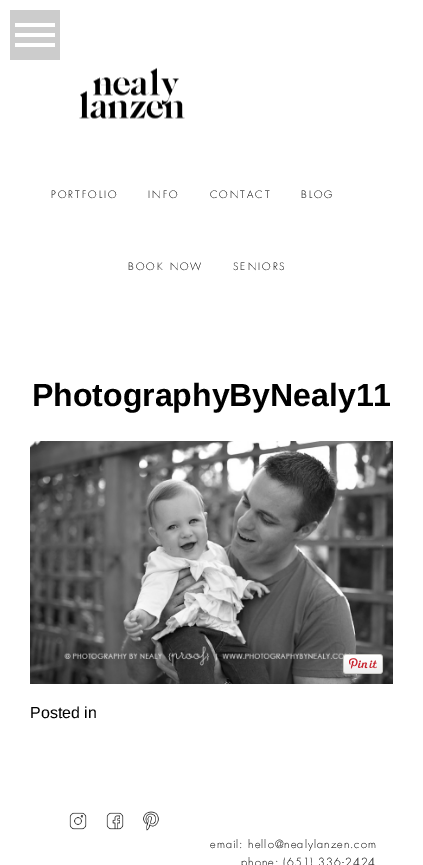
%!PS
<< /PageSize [423 865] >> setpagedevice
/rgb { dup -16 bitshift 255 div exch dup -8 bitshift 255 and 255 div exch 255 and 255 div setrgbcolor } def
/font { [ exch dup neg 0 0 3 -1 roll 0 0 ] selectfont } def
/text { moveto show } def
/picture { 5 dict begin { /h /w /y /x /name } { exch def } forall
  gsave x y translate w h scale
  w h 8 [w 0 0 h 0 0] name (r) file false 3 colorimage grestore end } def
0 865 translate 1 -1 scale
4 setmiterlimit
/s1 { /LiberationSans-Bold 32 font 16#000000 rgb } def
/s2 { /LiberationSans-Regular 16 font 16#000000 rgb } def
16#FFFFFF rgb
0 0 423 865 rectfill
16#CCCCCC rgb
10 10 50 50 rectfill
16#FFFFFF rgb
15 23 40 4 rectfill
15 33 40 4 rectfill
15 43 40 4 rectfill
(pic1.raw) 79 67 106 52 picture
/Futura-Light 10 font
16#000000 rgb
51 198 moveto 2 0 (PORTFOLIO) ashow
148 198 moveto 2 0 (INFO) ashow
210 198 moveto 2 0 (CONTACT) ashow
301 198 moveto 2 0 (BLOG) ashow
128 270 moveto 2 0 (BOOK NOW) ashow
233 270 moveto 2 0 (SENIORS) ashow
s1
(PhotographyByNealy11) 32 406 text
(pic2.raw) 30 441 363 243 picture
(pic3.raw) 343 654 40 20 picture
s2
(Posted in) 30 718 text
(pic4.raw) 69 812 18 18 picture
(pic5.raw) 106 812 18 18 picture
(pic6.raw) 143 811 16 20 picture
/Futura-Light 11 font
210 848 moveto 1 0 (email: hello@nealylanzen.com) ashow
241 866 moveto 1 0 (phone: \(651\) 336-2424) ashow
showpage
